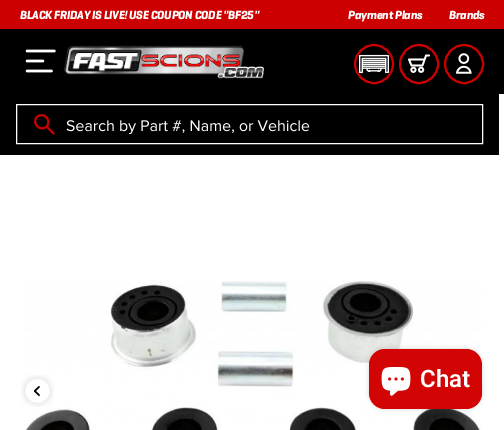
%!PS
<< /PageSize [504 430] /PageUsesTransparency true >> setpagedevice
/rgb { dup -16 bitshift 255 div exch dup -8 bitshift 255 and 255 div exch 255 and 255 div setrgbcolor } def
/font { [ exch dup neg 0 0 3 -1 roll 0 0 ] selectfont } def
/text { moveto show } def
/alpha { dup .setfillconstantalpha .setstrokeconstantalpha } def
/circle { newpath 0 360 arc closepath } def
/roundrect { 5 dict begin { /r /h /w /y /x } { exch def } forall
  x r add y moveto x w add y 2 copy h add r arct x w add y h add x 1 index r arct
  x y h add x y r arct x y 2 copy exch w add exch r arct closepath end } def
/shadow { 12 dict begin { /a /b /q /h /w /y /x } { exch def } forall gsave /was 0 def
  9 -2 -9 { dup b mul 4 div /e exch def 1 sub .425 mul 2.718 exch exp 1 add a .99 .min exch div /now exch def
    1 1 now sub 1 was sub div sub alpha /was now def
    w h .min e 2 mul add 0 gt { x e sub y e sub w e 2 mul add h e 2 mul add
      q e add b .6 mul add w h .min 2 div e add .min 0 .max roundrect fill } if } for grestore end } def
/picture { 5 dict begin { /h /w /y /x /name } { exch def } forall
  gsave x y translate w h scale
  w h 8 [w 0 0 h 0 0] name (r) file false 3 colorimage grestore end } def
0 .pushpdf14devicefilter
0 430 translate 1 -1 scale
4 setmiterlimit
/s1 { /Roboto-SemiBold 24 font 16#FFFFFF rgb } def
16#FFFFFF rgb
0 0 504 430 rectfill
16#CC0000 rgb
0 0 504 29 rectfill
/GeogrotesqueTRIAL-BoldItalic 12 font
16#FFFFFF rgb
20 19 moveto -0.25 0 (BLACK FRIDAY IS LIVE) ashow
/LiberationSans-BoldItalic 12 font
124 19 moveto -0.25 0 (!) ashow
/GeogrotesqueTRIAL-BoldItalic 12 font
129 19 moveto -0.25 0 (USE COUPON CODE) ashow
/LiberationSans-BoldItalic 12 font
223 19 moveto -0.25 0 (") ashow
/GeogrotesqueTRIAL-BoldItalic 12 font
228 19 moveto -0.25 0 (BF25) ashow
/LiberationSans-BoldItalic 12 font
254 19 moveto -0.25 0 (") ashow
/GeogrotesqueTRIAL-BoldItalic 12 font
348 19 moveto -0.25 0 (Payment Plans) ashow
449 19 moveto -0.25 0 (Brands) ashow
16#000000 rgb
0 29 504 65 rectfill
(pic1.raw) 25 49 31 24 picture
(pic2.raw) 64 45 200 34 picture
16#CC0000 rgb
2 setlinewidth
374 64 19 circle stroke
(pic3.raw) 359 54 30 20 picture
419 64 19 circle stroke
16#FFFFFF rgb
1.7 setlinewidth
1 setlinecap
1 setlinejoin
429 55.5 moveto 426 55.5 lineto 422.5 65.5 lineto 411.5 65.5 lineto 409 59.5 lineto 424.5 59.5 lineto stroke
0 setlinecap
0 setlinejoin
413.4 69.8 2.1 circle stroke
421.1 69.8 2.1 circle stroke
16#CC0000 rgb
2 setlinewidth
464 64 19 circle stroke
(pic4.raw) 456 53 16 21 picture
16#000000 rgb
0 94 499 61 rectfill
16#FFFFFF rgb
1 setlinewidth
16.5 104.5 466 39 rectstroke
(pic5.raw) 66 120 244 14 picture
16#CC0000 rgb
1.9 setlinewidth
37 117 moveto 43 111 52.5 120.5 46.5 126.5 curveto 40.5 132.5 31 123 37 117 curveto closepath stroke
1 setlinecap
47 127 moveto 53.5 133.5 lineto stroke
(pic6.raw) 25 280 457 150 picture
(pic7.raw) 21 375 33 32 picture
(pic8.raw) 479 387 4 14 picture
16#000000 rgb
369 349 113 60 16 2.5 0.15 shadow
16#D20404 rgb
369 349 113 60 16 roundrect fill
(pic9.raw) 381 367 30 29 picture
s1
(Chat) 420 387 text
.poppdf14devicefilter showpage
